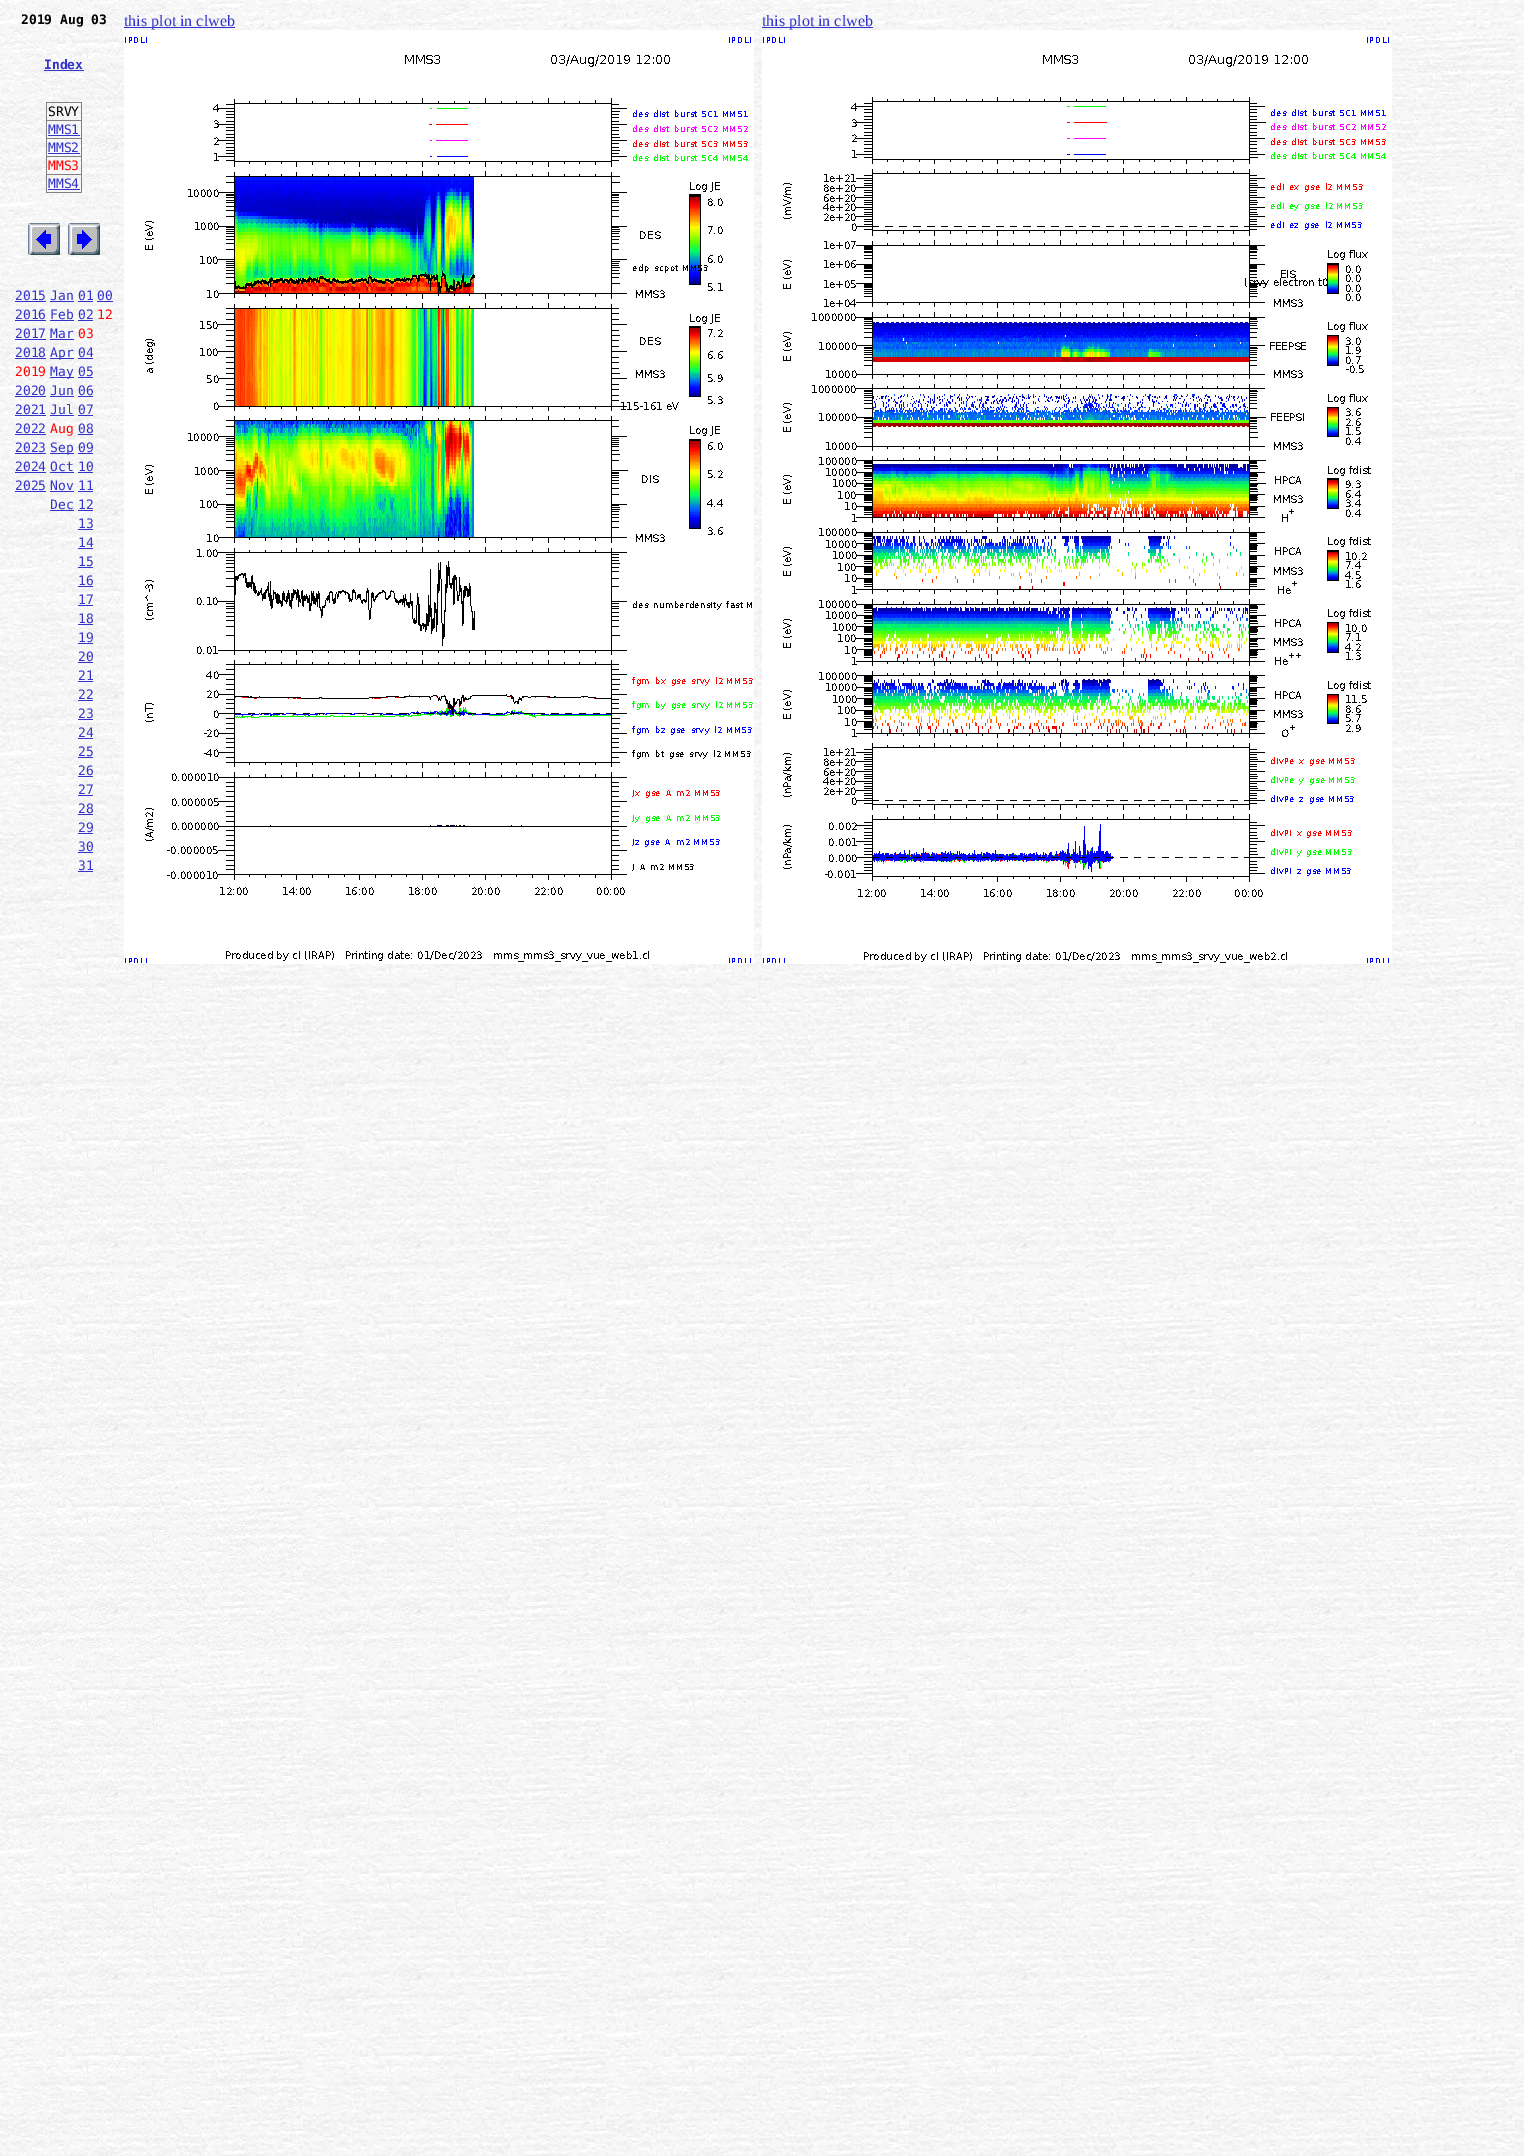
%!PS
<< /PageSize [1524 2156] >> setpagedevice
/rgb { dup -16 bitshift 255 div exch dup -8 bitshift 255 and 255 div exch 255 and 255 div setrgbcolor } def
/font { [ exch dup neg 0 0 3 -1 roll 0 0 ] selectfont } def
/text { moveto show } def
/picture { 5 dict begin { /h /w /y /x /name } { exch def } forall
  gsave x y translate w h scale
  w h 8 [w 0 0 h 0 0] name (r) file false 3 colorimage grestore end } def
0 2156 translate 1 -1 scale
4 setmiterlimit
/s1 { /DejaVuSansMono-Bold 13 font 16#000000 rgb } def
/s2 { /DejaVuSansMono-Bold 13 font 16#3333CC rgb } def
/s3 { /DejaVuSansMono-Regular 13 font 16#000000 rgb } def
/s4 { /DejaVuSansMono-Regular 13 font 16#3333CC rgb } def
/s5 { /DejaVuSansMono-Regular 13 font 16#FF0000 rgb } def
/s6 { /LiberationSerif-Regular 16 font 16#3333CC rgb } def
16#FFFFFF rgb
0 0 1524 2156 rectfill
(pic1.raw) 0 0 1524 2156 picture
s1
(2019 Aug 03) 21 24 text
s2
(Index) 44 69 text
44 70 40 1 rectfill
16#808080 rgb
46 102 36 1 rectfill
81 102 1 91 rectfill
46 192 36 1 rectfill
46 102 1 91 rectfill
s3
(SRVY) 48 116 text
16#808080 rgb
46 120 36 1 rectfill
s4
(MMS1) 48 134 text
48 135 32 1 rectfill
16#808080 rgb
46 138 36 1 rectfill
s4
(MMS2) 48 152 text
48 153 32 1 rectfill
16#808080 rgb
46 156 36 1 rectfill
s5
(MMS3) 48 170 text
16#808080 rgb
46 174 36 1 rectfill
s4
(MMS4) 48 188 text
48 189 32 1 rectfill
(pic2.raw) 28 223 32 32 picture
(pic3.raw) 68 223 32 32 picture
(2015) 15 300 text
15 301 31 1 rectfill
(Jan) 50 300 text
50 301 24 1 rectfill
(01) 78 300 text
78 301 15 1 rectfill
(00) 97 300 text
97 301 16 1 rectfill
(2016) 15 319 text
15 320 31 1 rectfill
(Feb) 50 319 text
50 320 24 1 rectfill
(02) 78 319 text
78 320 15 1 rectfill
s5
(12) 97 319 text
s4
(2017) 15 338 text
15 339 31 1 rectfill
(Mar) 50 338 text
50 339 24 1 rectfill
s5
(03) 78 338 text
s4
(2018) 15 357 text
15 358 31 1 rectfill
50 358 24 1 rectfill
(Apr) 50 357 text
(04) 78 357 text
78 358 15 1 rectfill
s5
(2019) 15 376 text
16#3333CC rgb
50 377 24 1 rectfill
(May) 50 376 text
(05) 78 376 text
78 377 15 1 rectfill
(2020) 15 395 text
15 396 31 1 rectfill
(Jun) 50 395 text
50 396 24 1 rectfill
(06) 78 395 text
78 396 15 1 rectfill
(2021) 15 414 text
15 415 31 1 rectfill
(Jul) 50 414 text
50 415 24 1 rectfill
(07) 78 414 text
78 415 15 1 rectfill
(2022) 15 433 text
15 434 31 1 rectfill
s5
(Aug) 50 433 text
s4
(08) 78 433 text
78 434 15 1 rectfill
(2023) 15 452 text
15 453 31 1 rectfill
50 453 24 1 rectfill
(Sep) 50 452 text
(09) 78 452 text
78 453 15 1 rectfill
(2024) 15 471 text
15 472 31 1 rectfill
(Oct) 50 471 text
50 472 24 1 rectfill
(10) 78 471 text
78 472 15 1 rectfill
(2025) 15 490 text
15 491 31 1 rectfill
(Nov) 50 490 text
50 491 24 1 rectfill
(11) 78 490 text
78 491 15 1 rectfill
(Dec) 50 509 text
50 510 24 1 rectfill
(12) 78 509 text
78 510 15 1 rectfill
(13) 78 528 text
78 529 15 1 rectfill
(14) 78 547 text
78 548 15 1 rectfill
(15) 78 566 text
78 567 15 1 rectfill
(16) 78 585 text
78 586 15 1 rectfill
(17) 78 604 text
78 605 15 1 rectfill
(18) 78 623 text
78 624 15 1 rectfill
(19) 78 642 text
78 643 15 1 rectfill
(20) 78 661 text
78 662 15 1 rectfill
(21) 78 680 text
78 681 15 1 rectfill
(22) 78 699 text
78 700 15 1 rectfill
(23) 78 718 text
78 719 15 1 rectfill
(24) 78 737 text
78 738 15 1 rectfill
(25) 78 756 text
78 757 15 1 rectfill
(26) 78 775 text
78 776 15 1 rectfill
(27) 78 794 text
78 795 15 1 rectfill
(28) 78 813 text
78 814 15 1 rectfill
(29) 78 832 text
78 833 15 1 rectfill
(30) 78 851 text
78 852 15 1 rectfill
(31) 78 870 text
78 871 15 1 rectfill
124 27 111 1 rectfill
s6
(this plot in clweb) 124 26 text
(pic4.raw) 124 30 630 934 picture
762 27 111 1 rectfill
(this plot in clweb) 762 26 text
(pic5.raw) 762 30 630 934 picture
showpage
